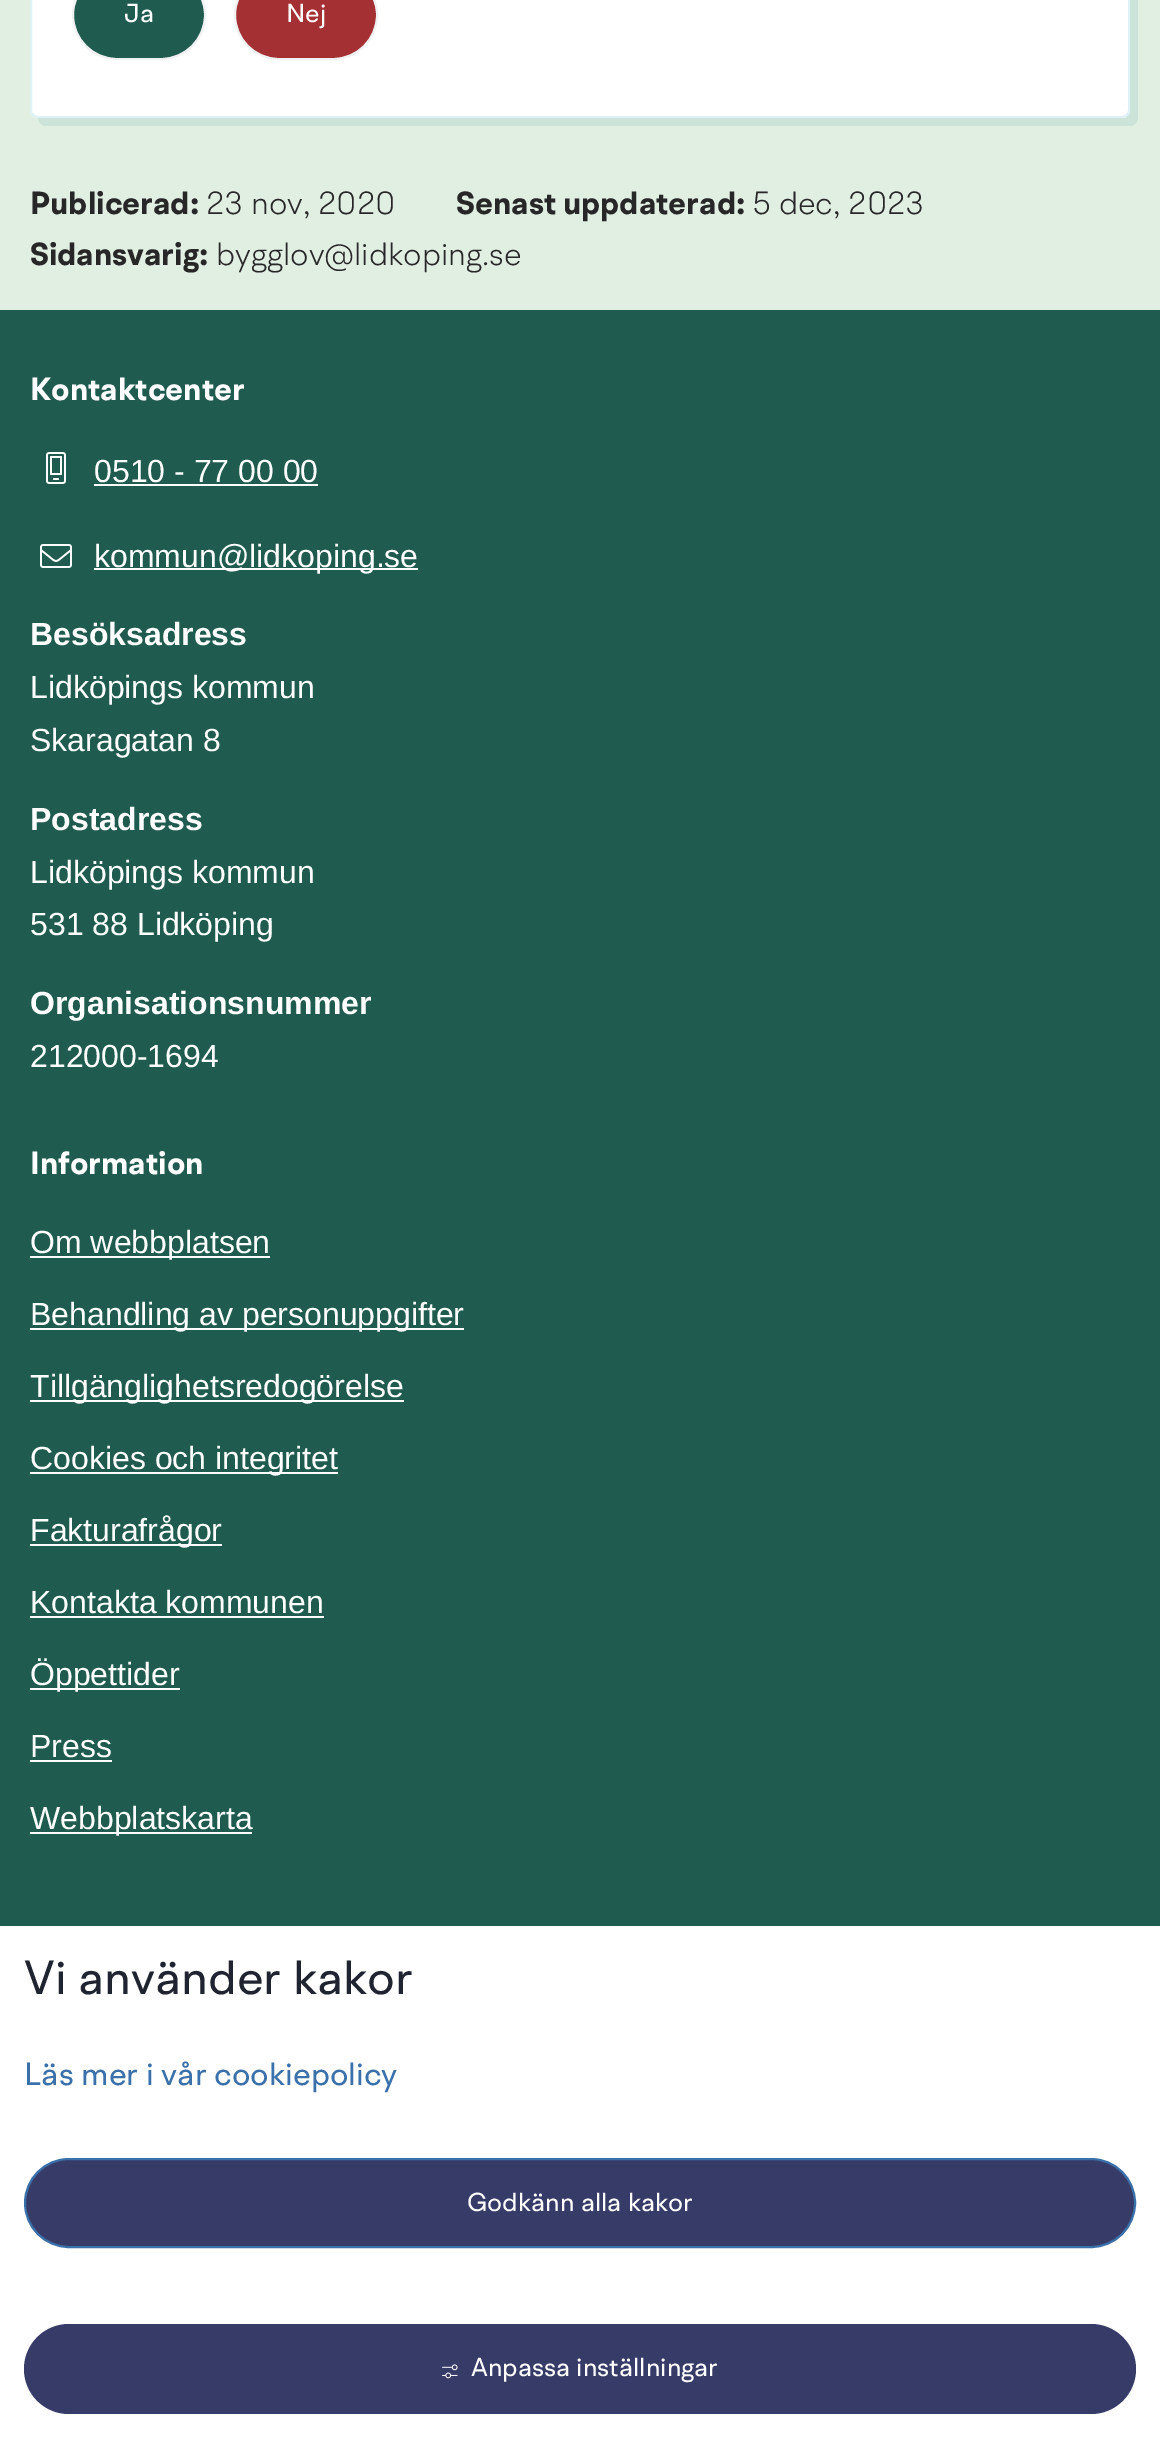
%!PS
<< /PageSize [1160 2463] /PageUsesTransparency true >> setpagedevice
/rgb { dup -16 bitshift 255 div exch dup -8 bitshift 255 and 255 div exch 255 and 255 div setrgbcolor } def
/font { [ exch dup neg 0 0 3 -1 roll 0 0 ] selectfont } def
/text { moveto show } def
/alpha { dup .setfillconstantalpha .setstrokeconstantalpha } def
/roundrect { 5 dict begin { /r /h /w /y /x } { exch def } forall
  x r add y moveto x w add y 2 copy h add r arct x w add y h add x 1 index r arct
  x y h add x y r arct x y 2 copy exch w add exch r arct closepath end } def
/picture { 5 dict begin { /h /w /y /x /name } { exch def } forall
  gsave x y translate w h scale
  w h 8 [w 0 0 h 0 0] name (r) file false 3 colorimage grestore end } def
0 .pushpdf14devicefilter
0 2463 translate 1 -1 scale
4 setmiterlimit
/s1 { /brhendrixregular-Regular 26 font 16#FFFFFF rgb } def
/s2 { /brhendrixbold-Regular 32 font 16#272727 rgb } def
/s3 { /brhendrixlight-Regular 32 font 16#272727 rgb } def
/s4 { /brhendrixbold-Regular 32 font 16#FFFFFF rgb } def
/s5 { /LiberationSans-Regular 32 font 16#FFFFFF rgb } def
/s6 { /LiberationSans-Bold 32 font 16#FFFFFF rgb } def
/s7 { /brhendrixregular-Regular 48 font 16#202330 rgb } def
/s8 { /brhendrixregular-Regular 32 font 16#3A71AA rgb } def
16#E1EFE3 rgb
0 0 1160 2463 rectfill
16#CBE3D8 rgb
38 118 moveto 38 122 42 126 46 126 curveto 1130 126 lineto 1134 126 1138 122 1138 118 curveto 1138 -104 lineto 1138 -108 1134 -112 1130 -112 curveto 1130 110 lineto 1130 114 1126 118 1122 118 curveto closepath fill
16#FFFFFF rgb
30 -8 1100 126 8 roundrect fill
0.6 alpha
16#C8E7ED rgb
2 setlinewidth
31 -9 1098 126 7 roundrect stroke
1 alpha
16#205B4F rgb
73 -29 132 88 44 roundrect gsave fill grestore
16#F0F1F2 rgb
stroke
s1
(Ja) 124 22 text
16#A43033 rgb
235 -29 142 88 44 roundrect gsave fill grestore
16#F0F1F2 rgb
stroke
s1
(Nej) 286 22 text
s2
(Publicerad:) 30 214 text
s3
(23 nov, 2020) 206 214 text
s2
(Senast uppdaterad:) 456 214 text
s3
(5 dec, 2023) 752 214 text
s2
(Sidansvarig:) 30 265 text
s3
(bygglov@lidkoping.se) 216 265 text
16#205B4F rgb
0 310 1160 1616 rectfill
s4
(Kontaktcenter) 30 400 text
(pic1.raw) 46 452 20 32 picture
s5
(0510 - 77 00 00) 94 482 text
94 484 224 2 rectfill
(pic2.raw) 40 544 32 24 picture
94 568 324 2 rectfill
(kommun@lidkoping.se) 94 567 text
s6
(Besöksadress) 30 645 text
s5
(Lidköpings kommun) 30 698 text
(Skaragatan 8) 30 751 text
s6
(Postadress) 30 830 text
s5
(Lidköpings kommun) 30 883 text
(531 88 Lidköping) 30 935 text
s6
(Organisationsnummer) 30 1014 text
s5
(212000-1694) 30 1067 text
s4
(Information) 30 1174 text
30 1256 240 2 rectfill
s5
(Om webbplatsen) 30 1253 text
30 1328 434 2 rectfill
(Behandling av personuppgifter) 30 1325 text
30 1400 374 2 rectfill
(Tillgänglighetsredogörelse) 30 1397 text
30 1472 308 2 rectfill
(Cookies och integritet) 30 1469 text
30 1544 192 2 rectfill
(Fakturafrågor) 30 1541 text
(Kontakta kommunen) 30 1613 text
30 1616 294 2 rectfill
30 1688 150 2 rectfill
(Öppettider) 30 1685 text
(Press) 30 1757 text
30 1760 82 2 rectfill
30 1832 222 2 rectfill
(Webbplatskarta) 30 1829 text
0 1926 1160 537 rectfill
s7
(Vi använder kakor) 24 1994 text
s8
(Läs mer i vår cookiepolicy) 24 2085 text
16#363B68 rgb
25 2159 1110 88 44 roundrect gsave fill grestore
16#3A71AA rgb
stroke
s1
(Godkänn alla kakor) 467 2211 text
16#363B68 rgb
24 2324 1112 90 45 roundrect fill
(pic3.raw) 442 2364 16 15 picture
s1
(Anpassa inställningar) 471 2376 text
.poppdf14devicefilter showpage
